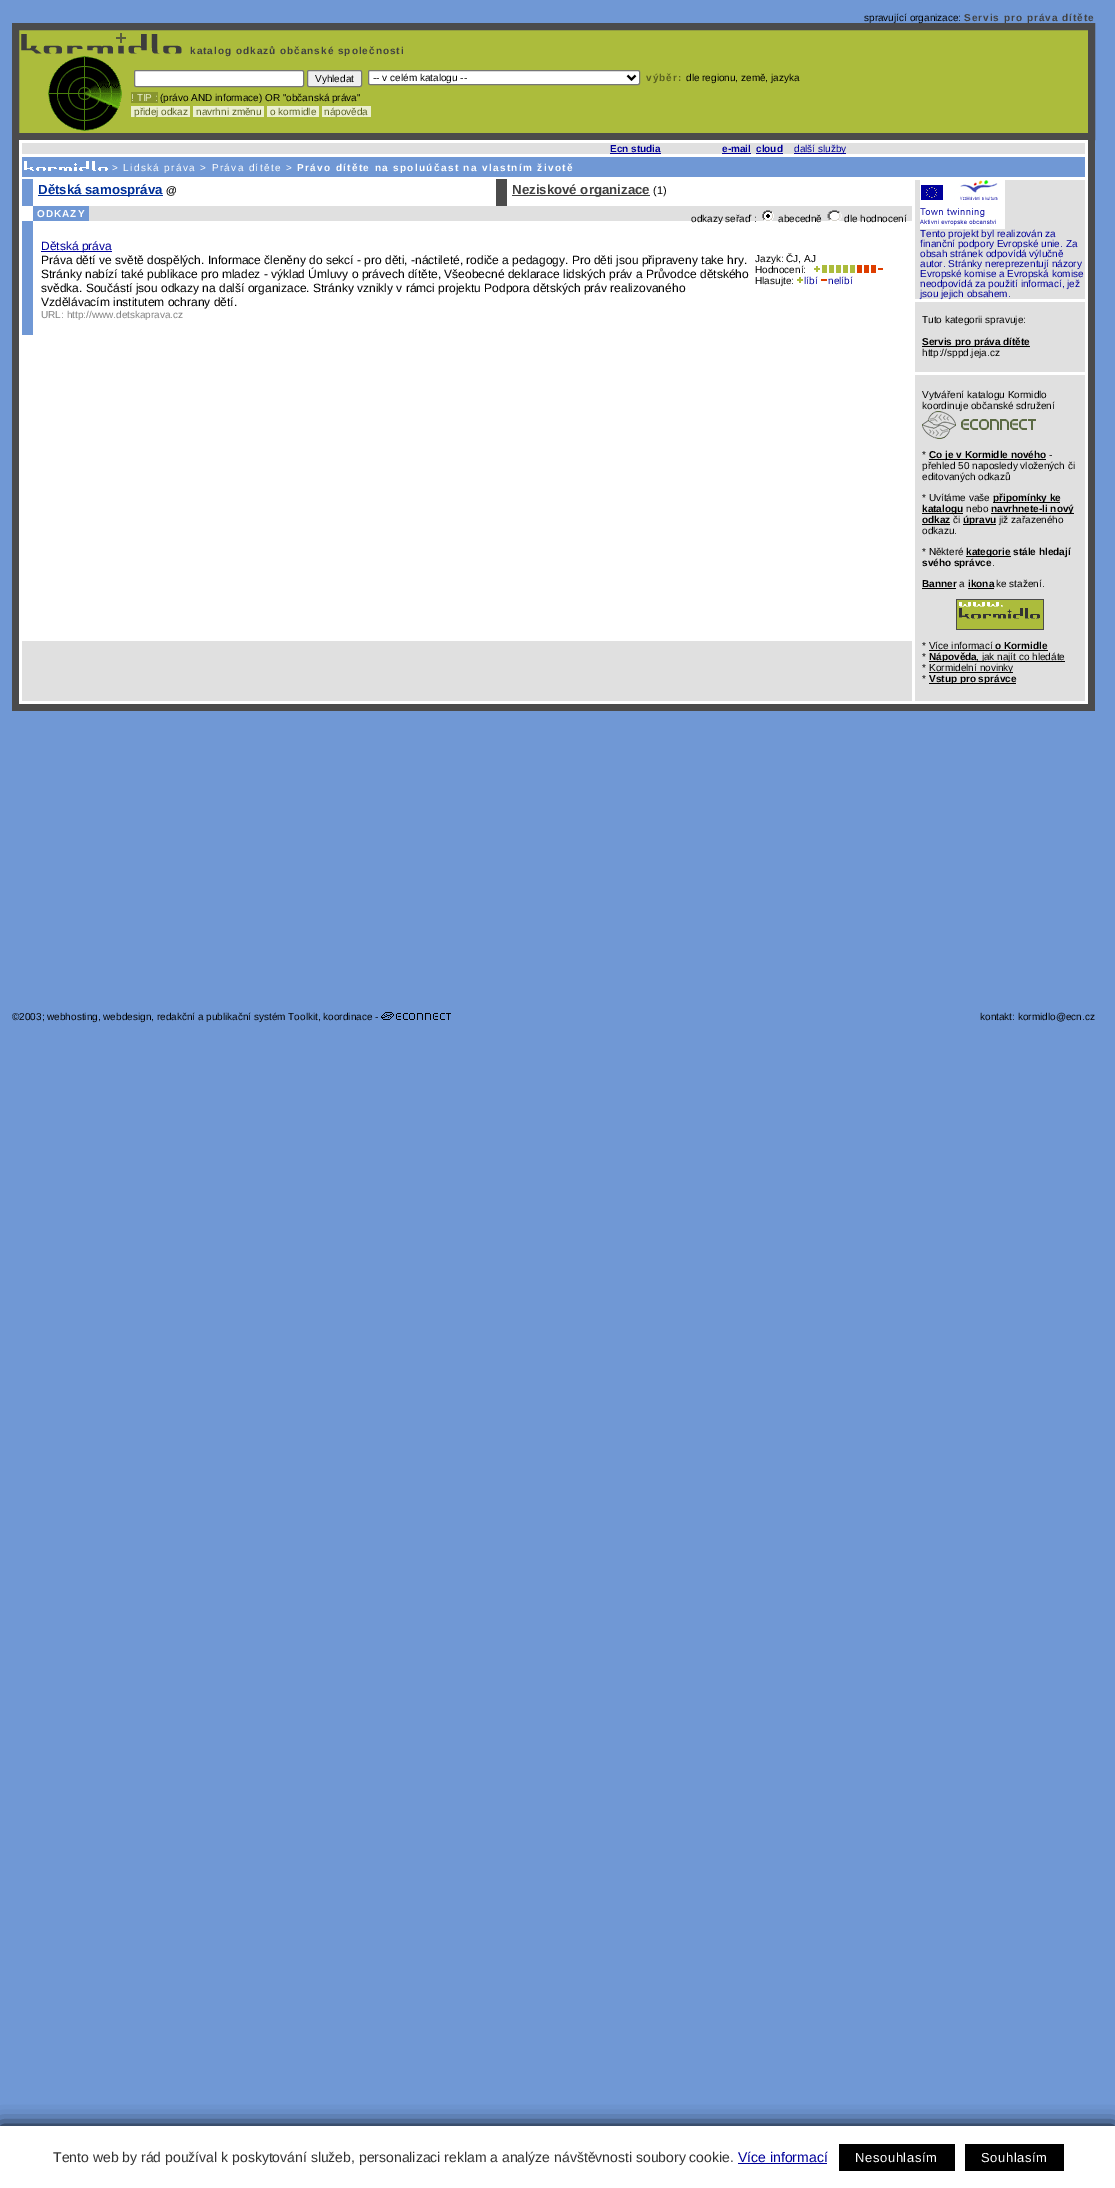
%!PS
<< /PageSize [1115 2188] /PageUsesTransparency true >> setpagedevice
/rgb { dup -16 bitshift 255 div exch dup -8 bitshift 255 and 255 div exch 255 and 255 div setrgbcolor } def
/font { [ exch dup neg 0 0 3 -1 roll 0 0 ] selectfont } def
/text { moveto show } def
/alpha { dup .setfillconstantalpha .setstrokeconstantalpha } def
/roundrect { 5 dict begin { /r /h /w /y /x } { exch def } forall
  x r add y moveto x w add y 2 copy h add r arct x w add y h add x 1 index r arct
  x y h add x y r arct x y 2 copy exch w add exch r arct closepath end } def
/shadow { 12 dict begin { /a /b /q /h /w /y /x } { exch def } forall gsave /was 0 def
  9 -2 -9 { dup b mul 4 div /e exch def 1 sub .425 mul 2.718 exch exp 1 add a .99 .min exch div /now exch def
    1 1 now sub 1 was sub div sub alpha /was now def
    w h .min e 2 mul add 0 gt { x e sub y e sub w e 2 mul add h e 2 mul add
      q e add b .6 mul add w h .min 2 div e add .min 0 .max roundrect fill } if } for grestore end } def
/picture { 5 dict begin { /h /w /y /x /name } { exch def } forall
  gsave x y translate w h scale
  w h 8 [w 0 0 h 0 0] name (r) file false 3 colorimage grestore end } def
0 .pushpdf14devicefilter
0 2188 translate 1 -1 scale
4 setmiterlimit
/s1 { /LiberationSans-Regular 10 font 16#000000 rgb } def
/s2 { /LiberationSans-Regular 10 font 16#EBEFD0 rgb } def
/s3 { /LiberationSans-Regular 10 font 16#58601F rgb } def
/s4 { /LiberationSans-Bold 10 font 16#000099 rgb } def
/s5 { /LiberationSans-Regular 10 font 16#000099 rgb } def
/s6 { /LiberationSans-Bold 13.25 font 16#003099 rgb } def
/s7 { /LiberationSans-Bold 11 font 16#000000 rgb } def
/s8 { /LiberationSans-Bold 13.25 font 16#404040 rgb } def
/s9 { /LiberationSans-Regular 11 font 16#000000 rgb } def
/s10 { /LiberationSans-Regular 12 font 16#000099 rgb } def
/s11 { /LiberationSans-Regular 12 font 16#000000 rgb } def
/s12 { /LiberationSans-Regular 10 font 16#808080 rgb } def
/s13 { /LiberationSans-Bold 10 font 16#000000 rgb } def
/s14 { /LiberationSans-Regular 14 font 16#323232 rgb } def
/s15 { /LiberationSans-Regular 14 font 16#000099 rgb } def
16#7098D5 rgb
0 0 1115 2188 rectfill
16#ACBC3C rgb
15.5 26.5 moveto 1091.5 26.5 lineto 1091.5 136.5 lineto 15.5 136.5 lineto closepath gsave fill grestore
16#4B4B4B rgb
7 setlinewidth
stroke
s1
(spravující organizace:) 864 21 text
/LiberationSans-Bold 10 font
16#404040 rgb
964 21 moveto 1 0 (Servis pro práva dítěte) ashow
(pic1.raw) 21 33 161 21 picture
190 54 moveto 1 0 (katalog odkazů občanské společnosti) ashow
(pic2.raw) 48 56 74 75 picture
16#FFFFFF rgb
134.5 70.5 169 16 1.5 roundrect gsave fill grestore
16#767676 rgb
1 setlinewidth
stroke
16#EFEFEF rgb
307.5 70.5 54 16 1.5 roundrect gsave fill grestore
16#767676 rgb
stroke
s1
(Vyhledat) 315 82 text
16#FFFFFF rgb
368.5 70.5 271 14 1.5 roundrect gsave fill grestore
16#767676 rgb
stroke
16#000000 rgb
2 setlinewidth
627.5 75.5 moveto 631.5 79.5 lineto 635.5 75.5 lineto stroke
(-- v celém katalogu --) 373 81 text
/LiberationSans-Bold 10 font
16#58601F rgb
646 81 moveto 1 0 (výběr:) ashow
s1
(dle regionu, země, jazyka) 686 81 text
16#88952F rgb
131 92 27 11 rectfill
s2
(! TIP :) 131 101 text
s1
(\(právo AND informace\) OR "občanská práva") 160 101 text
16#EBEFD0 rgb
131 106 59 11 rectfill
s3
(přidej odkaz) 134 115 text
16#EBEFD0 rgb
193 106 71 11 rectfill
s3
(navrhni změnu) 196 115 text
16#EBEFD0 rgb
267 106 52 11 rectfill
s3
(o kormidle) 270 115 text
16#EBEFD0 rgb
322 106 49 11 rectfill
s3
(nápověda) 324 115 text
16#FFFFFF rgb
19 140 1069 564 rectfill
16#4B4B4B rgb
1088 140 7 571 rectfill
12 704 1083 7 rectfill
12 140 7 571 rectfill
16#E0E0E0 rgb
22 143 1063 11 rectfill
s4
(Ecn studia) 610 152 text
610 153 51 1 rectfill
(e-mail) 722 152 text
722 153 29 1 rectfill
(cloud) 756 152 text
756 153 27 1 rectfill
794 153 52 1 rectfill
s5
(další služby) 794 152 text
16#7098D5 rgb
22 157 1063 20 rectfill
(pic3.raw) 24 161 84 10 picture
16#FFFFFF rgb
112 171 moveto 1.35 0 (> Lidská práva > Práva dítěte >) ashow
/LiberationSans-Bold 10 font
297 171 moveto 1.35 0 (Právo dítěte na spoluúčast na vlastním životě) ashow
16#7098D5 rgb
22 179 11 27 rectfill
16#003099 rgb
38 195 125 1 rectfill
s6
(Dětská samospráva) 38 194 text
s7
(@) 166 194 text
16#4B4B4B rgb
496 179 11 27 rectfill
16#404040 rgb
512 195 138 1 rectfill
s8
(Neziskové organizace) 512 194 text
s9
(\(1\)) 653 194 text
16#E0E0E0 rgb
89 206 823 15 rectfill
16#7098D5 rgb
33 206 56 15 rectfill
/LiberationSans-Bold 10 font
16#FFFFFF rgb
37 217 moveto 1 0 (ODKAZY) ashow
s1
(odkazy seřaď :) 691 222 text
(pic4.raw) 762 210 12 11 picture
(abecedně) 778 222 text
(pic5.raw) 827 210 15 11 picture
(dle hodnocení) 844 222 text
16#7098D5 rgb
22 221 11 114 rectfill
16#000099 rgb
41 251 71 1 rectfill
s10
(Dětská práva) 41 250 text
s11
(Práva dětí ve světě dospělých. Informace členěny do sekcí - pro děti, -náctileté, rodiče a pedagogy. Pro děti jsou připraveny take hry.) 41 264 text
s1
(Jazyk: ČJ, AJ) 755 262 text
(Hodnocení:) 755 273 text
(pic6.raw) 814 265 41 8 picture
(pic7.raw) 857 265 26 8 picture
(Hlasujte:) 755 284 text
(pic8.raw) 797 277 6 6 picture
s5
(líbí) 804 284 text
(nelíbí) 828 284 text
16#DE3E00 rgb
821 279 6 2 rectfill
s11
(Stránky nabízí také publikace pro mladez - výklad Úmluvy o právech dítěte, Všeobecné deklarace lidských práv a Průvodce dětského) 41 278 text
(svědka. Součástí jsou odkazy na další organizace. Stránky vznikly v rámci projektu Podpora dětských práv realizovaného) 41 292 text
(Vzdělávacím institutem ochrany dětí.) 41 306 text
s12
(URL: http://www.detskaprava.cz) 41 318 text
16#E0E0E0 rgb
915 180 170 521 rectfill
16#FFFFFF rgb
915 299 170 3 rectfill
(pic9.raw) 920 180 85 49 picture
s5
(Tento projekt byl realizován za) 920 237 text
(finanční podpory Evropské unie. Za) 920 247 text
(obsah stránek odpovídá výlučně) 920 257 text
(autor. Stránky nereprezentují názory) 920 267 text
(Evropské komise a Evropská komise) 920 277 text
(neodpovídá za použití informací, jež) 920 287 text
(jsou jejich obsahem.) 920 297 text
16#FFFFFF rgb
915 372 170 3 rectfill
s1
(Tuto kategorii spravuje:) 922 323 text
922 346 108 1 rectfill
s13
(Servis pro práva dítěte) 922 345 text
s1
(http://sppd.jeja.cz) 922 356 text
(Vytváření katalogu Kormidlo) 922 398 text
(koordinuje občanské sdružení) 922 409 text
(pic10.raw) 922 411 114 28 picture
(*) 922 458 text
929 459 117 1 rectfill
s13
(Co je v Kormidle nového) 929 458 text
s1
(-) 1049 458 text
(přehled 50 naposledy vložených či) 922 469 text
(editovaných odkazů) 922 480 text
(* Uvítáme vaše) 922 501 text
993 502 67 1 rectfill
s13
(připomínky ke) 993 501 text
922 513 41 1 rectfill
(katalogu) 922 512 text
s1
(nebo) 966 512 text
991 513 83 1 rectfill
s13
(navrhnete-li nový) 991 512 text
(odkaz) 922 523 text
922 524 28 1 rectfill
s1
(či) 953 523 text
963 524 33 1 rectfill
s13
(úpravu) 963 523 text
s1
(již zařazeného) 999 523 text
(odkazu.) 922 534 text
(* Některé) 922 555 text
966 556 45 1 rectfill
s13
(kategorie stále hledají) 966 555 text
(svého správce) 922 566 text
s1
(.) 992 566 text
s13
(Banner) 922 587 text
922 588 34 1 rectfill
s1
(a) 959 587 text
s13
(ikona) 968 587 text
968 588 26 1 rectfill
s1
(ke stažení.) 996 587 text
(pic11.raw) 956 599 88 31 picture
(* Více informací) 922 649 text
s13
(o Kormidle) 995 649 text
929 650 119 1 rectfill
s1
(*) 922 660 text
929 661 47 1 rectfill
s13
(Nápověda) 929 660 text
976 661 89 1 rectfill
s1
(, jak najít co hledáte) 976 660 text
(*) 922 671 text
929 672 84 1 rectfill
(Kormidelní novinky) 929 671 text
(*) 922 682 text
929 683 87 1 rectfill
s13
(Vstup pro správce) 929 682 text
16#E0E0E0 rgb
22 641 890 60 rectfill
s1
(©2003; webhosting, webdesign, redakční a publikační systém Toolkit, koordinace -) 12 1020 text
(pic12.raw) 381 1012 70 8 picture
(kontakt: kormidlo@ecn.cz) 980 1020 text
0 2126 1115 62 0 9.5 1 shadow
16#FFFFFF rgb
0 2126 1115 62 rectfill
s14
(Tento web by rád používal k poskytování služeb, personalizaci reklam a analýze návštěvnosti soubory cookie.) 53 2162 text
s15
(Více informací) 738 2162 text
738 2163 89 1 rectfill
16#000000 rgb
839 2144 116 27 rectfill
/LiberationSans-Regular 13 font
16#FFFFFF rgb
855 2162 moveto 0.6 0 (Nesouhlasím) ashow
16#000000 rgb
965 2144 99 27 rectfill
16#FFFFFF rgb
981 2162 moveto 0.6 0 (Souhlasím) ashow
.poppdf14devicefilter showpage
